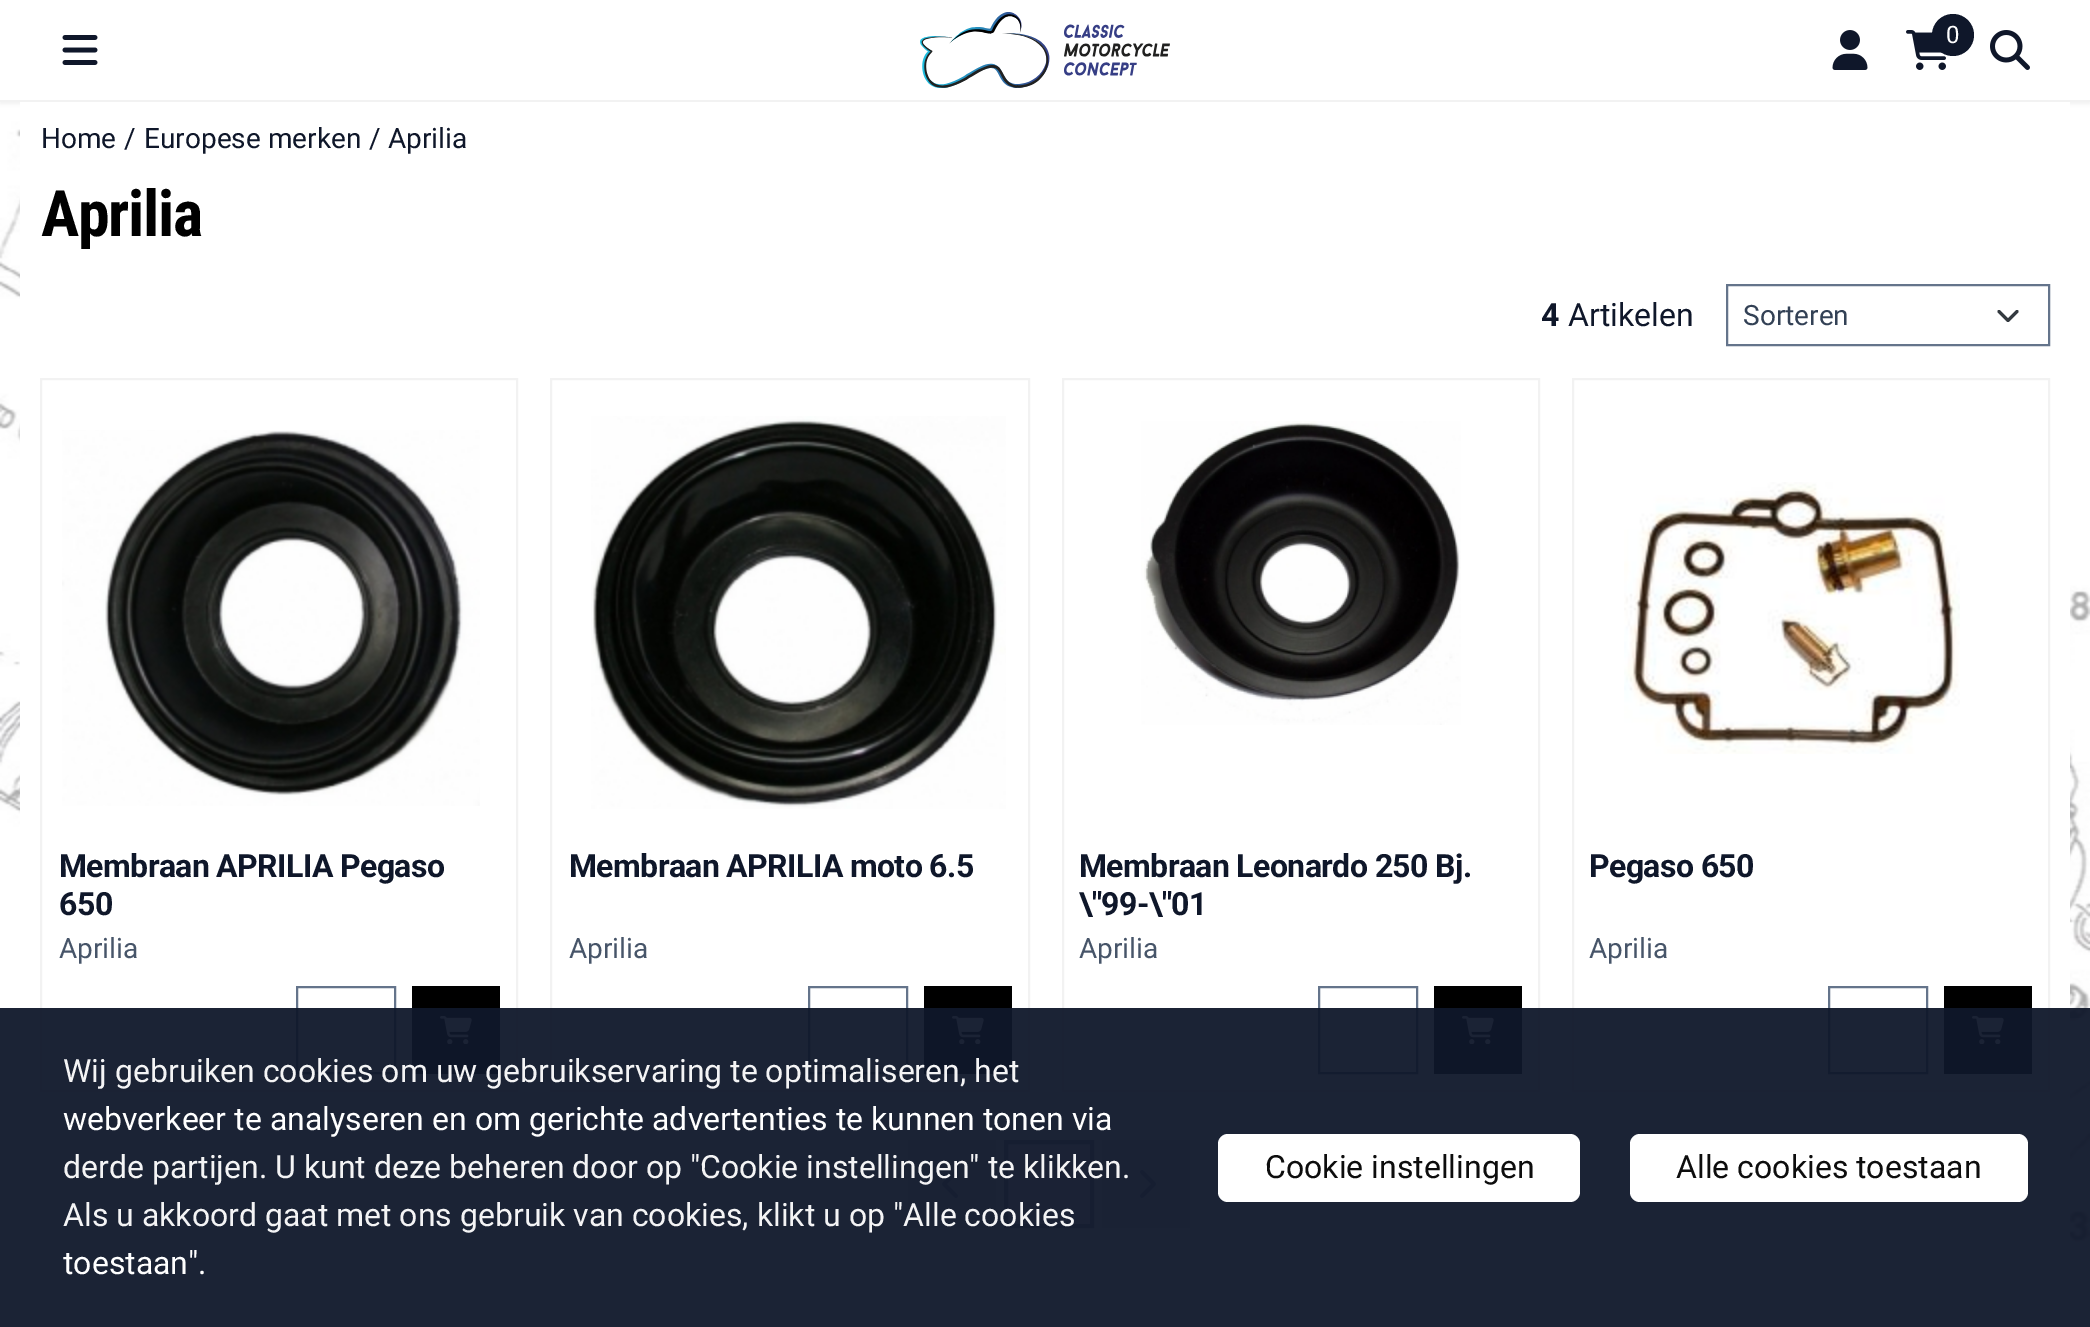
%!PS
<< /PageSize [2090 1327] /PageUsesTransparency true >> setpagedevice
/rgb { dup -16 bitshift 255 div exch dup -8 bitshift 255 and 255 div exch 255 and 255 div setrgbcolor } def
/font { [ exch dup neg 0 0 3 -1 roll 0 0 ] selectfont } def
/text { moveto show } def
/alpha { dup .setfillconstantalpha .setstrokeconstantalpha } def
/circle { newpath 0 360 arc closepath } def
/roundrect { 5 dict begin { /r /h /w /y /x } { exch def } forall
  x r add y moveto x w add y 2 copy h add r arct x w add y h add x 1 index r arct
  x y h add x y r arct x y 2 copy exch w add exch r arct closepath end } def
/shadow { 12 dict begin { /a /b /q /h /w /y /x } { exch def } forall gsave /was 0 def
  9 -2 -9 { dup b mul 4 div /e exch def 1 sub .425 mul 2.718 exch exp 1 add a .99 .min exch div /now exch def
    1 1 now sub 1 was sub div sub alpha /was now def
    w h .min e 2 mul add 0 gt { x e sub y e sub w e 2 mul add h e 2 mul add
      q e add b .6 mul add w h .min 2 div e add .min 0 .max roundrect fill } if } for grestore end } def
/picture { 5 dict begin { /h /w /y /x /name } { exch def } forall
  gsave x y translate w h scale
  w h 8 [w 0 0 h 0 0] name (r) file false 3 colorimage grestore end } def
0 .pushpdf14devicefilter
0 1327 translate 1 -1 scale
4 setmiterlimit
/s1 { /Roboto-Regular 24 font 16#FFFFFF rgb } def
/s2 { /Roboto-Regular 28 font 16#0F172A rgb } def
/s3 { /Roboto-Bold 32 font 16#0F172A rgb } def
/s4 { /Roboto-Regular 32 font 16#0F172A rgb } def
/s5 { /Roboto-Regular 28 font 16#334155 rgb } def
/s6 { /Roboto-Regular 28 font 16#475569 rgb } def
/s7 { /Roboto-Regular 32 font 16#F4F4F5 rgb } def
/s8 { /Roboto-Regular 32 font 16#FFFFFF rgb } def
/s9 { /Roboto-Regular 32 font 16#0D0D0D rgb } def
16#FFFFFF rgb
0 0 2090 1327 rectfill
(pic1.raw) 0 102 2090 1225 picture
16#000000 rgb
0 2 2090 102 0 2 0.05 shadow
16#FFFFFF rgb
0 0 2090 100 rectfill
16#F2F2F2 rgb
0 100 2090 2 rectfill
(pic2.raw) 62 35 36 30 picture
(pic3.raw) 920 12 250 76 picture
(pic4.raw) 1832 30 36 40 picture
(pic5.raw) 1906 30 40 40 picture
16#0F172A rgb
1953 35 21 circle fill
s1
(0) 1946 43 text
(pic6.raw) 1990 30 40 40 picture
20 102 2050 1225 rectfill
s2
(Home) 41 148 text
(/) 124 148 text
(Europese merken) 144 148 text
(/) 369 148 text
(Aprilia) 388 148 text
/RobotoCondensed-Bold 64 font
16#000000 rgb
41 236 moveto -1.25 0 (Aprilia) ashow
s3
(4) 1541 326 text
s4
(Artikelen) 1568 326 text
16#343A40 rgb
3 setlinewidth
1 setlinecap
1 setlinejoin
1999 311.5 moveto 2008 320.5 lineto 2017 311.5 lineto stroke
16#64748B rgb
2 setlinewidth
0 setlinecap
0 setlinejoin
1727 285 322 60 rectstroke
s5
(Sorteren) 1743 325 text
16#F2F2F2 rgb
41 379 476 712 rectstroke
(pic7.raw) 62 430 418 376 picture
/Roboto-Bold 32 font
16#0F172A rgb
59 877 moveto -0.6 0 (Membraan APRILIA Pegaso) ashow
59 915 moveto -0.6 0 (650) ashow
s6
(Aprilia) 59 958 text
16#64748B rgb
297 987 98 86 rectstroke
16#000000 rgb
412 986 88 88 rectfill
(pic8.raw) 440 1016 32 28 picture
16#F2F2F2 rgb
551 379 478 712 rectstroke
(pic9.raw) 591 416 415 393 picture
/Roboto-Bold 32 font
16#0F172A rgb
569 877 moveto -0.6 0 (Membraan APRILIA moto 6.5) ashow
s6
(Aprilia) 569 958 text
16#64748B rgb
809 987 98 86 rectstroke
16#000000 rgb
924 986 88 88 rectfill
(pic8.raw) 952 1016 32 28 picture
16#F2F2F2 rgb
1063 379 476 712 rectstroke
(pic10.raw) 1141 421 320 304 picture
/Roboto-Bold 32 font
16#0F172A rgb
1079 877 moveto -0.6 0 (Membraan Leonardo 250 Bj.) ashow
1079 915 moveto -0.6 0 (\\"99-\\"01) ashow
s6
(Aprilia) 1079 958 text
16#64748B rgb
1319 987 98 86 rectstroke
16#000000 rgb
1434 986 88 88 rectfill
(pic8.raw) 1462 1016 32 28 picture
16#F2F2F2 rgb
1573 379 476 712 rectstroke
(pic11.raw) 1624 482 336 272 picture
/Roboto-Bold 32 font
16#0F172A rgb
1589 877 moveto -0.6 0 (Pegaso 650) ashow
s6
(Aprilia) 1589 958 text
16#64748B rgb
1829 987 98 86 rectstroke
16#000000 rgb
1944 986 88 88 rectfill
(pic8.raw) 1972 1016 32 28 picture
16#E2E8F0 rgb
908 1140 88 88 rectfill
(pic12.raw) 942 1170 16 28 picture
16#F1F5F9 rgb
1006 1142 moveto 1092 1142 lineto 1092 1226 lineto 1006 1226 lineto closepath gsave fill grestore
16#94A3B8 rgb
4 setlinewidth
stroke
16#E2E8F0 rgb
1102 1140 88 88 rectfill
(pic13.raw) 1140 1170 16 28 picture
0.95 alpha
16#0F172A rgb
0 1008 2090 319 rectfill
1 alpha
s7
(Wij gebruiken cookies om uw gebruikservaring te optimaliseren, het) 63 1082 text
s8
(webverkeer te analyseren en om gerichte advertenties te kunnen tonen via) 63 1130 text
s7
(derde partijen. U kunt deze beheren door op "Cookie instellingen" te klikken.) 63 1178 text
(Als u akkoord gaat met ons gebruik van cookies, klikt u op "Alle cookies) 63 1226 text
s8
(toestaan".) 63 1274 text
1218 1134 362 68 10 roundrect fill
s9
(Cookie instellingen) 1265 1178 text
16#FFFFFF rgb
1630 1134 398 68 10 roundrect fill
s9
(Alle cookies toestaan) 1676 1178 text
.poppdf14devicefilter showpage
